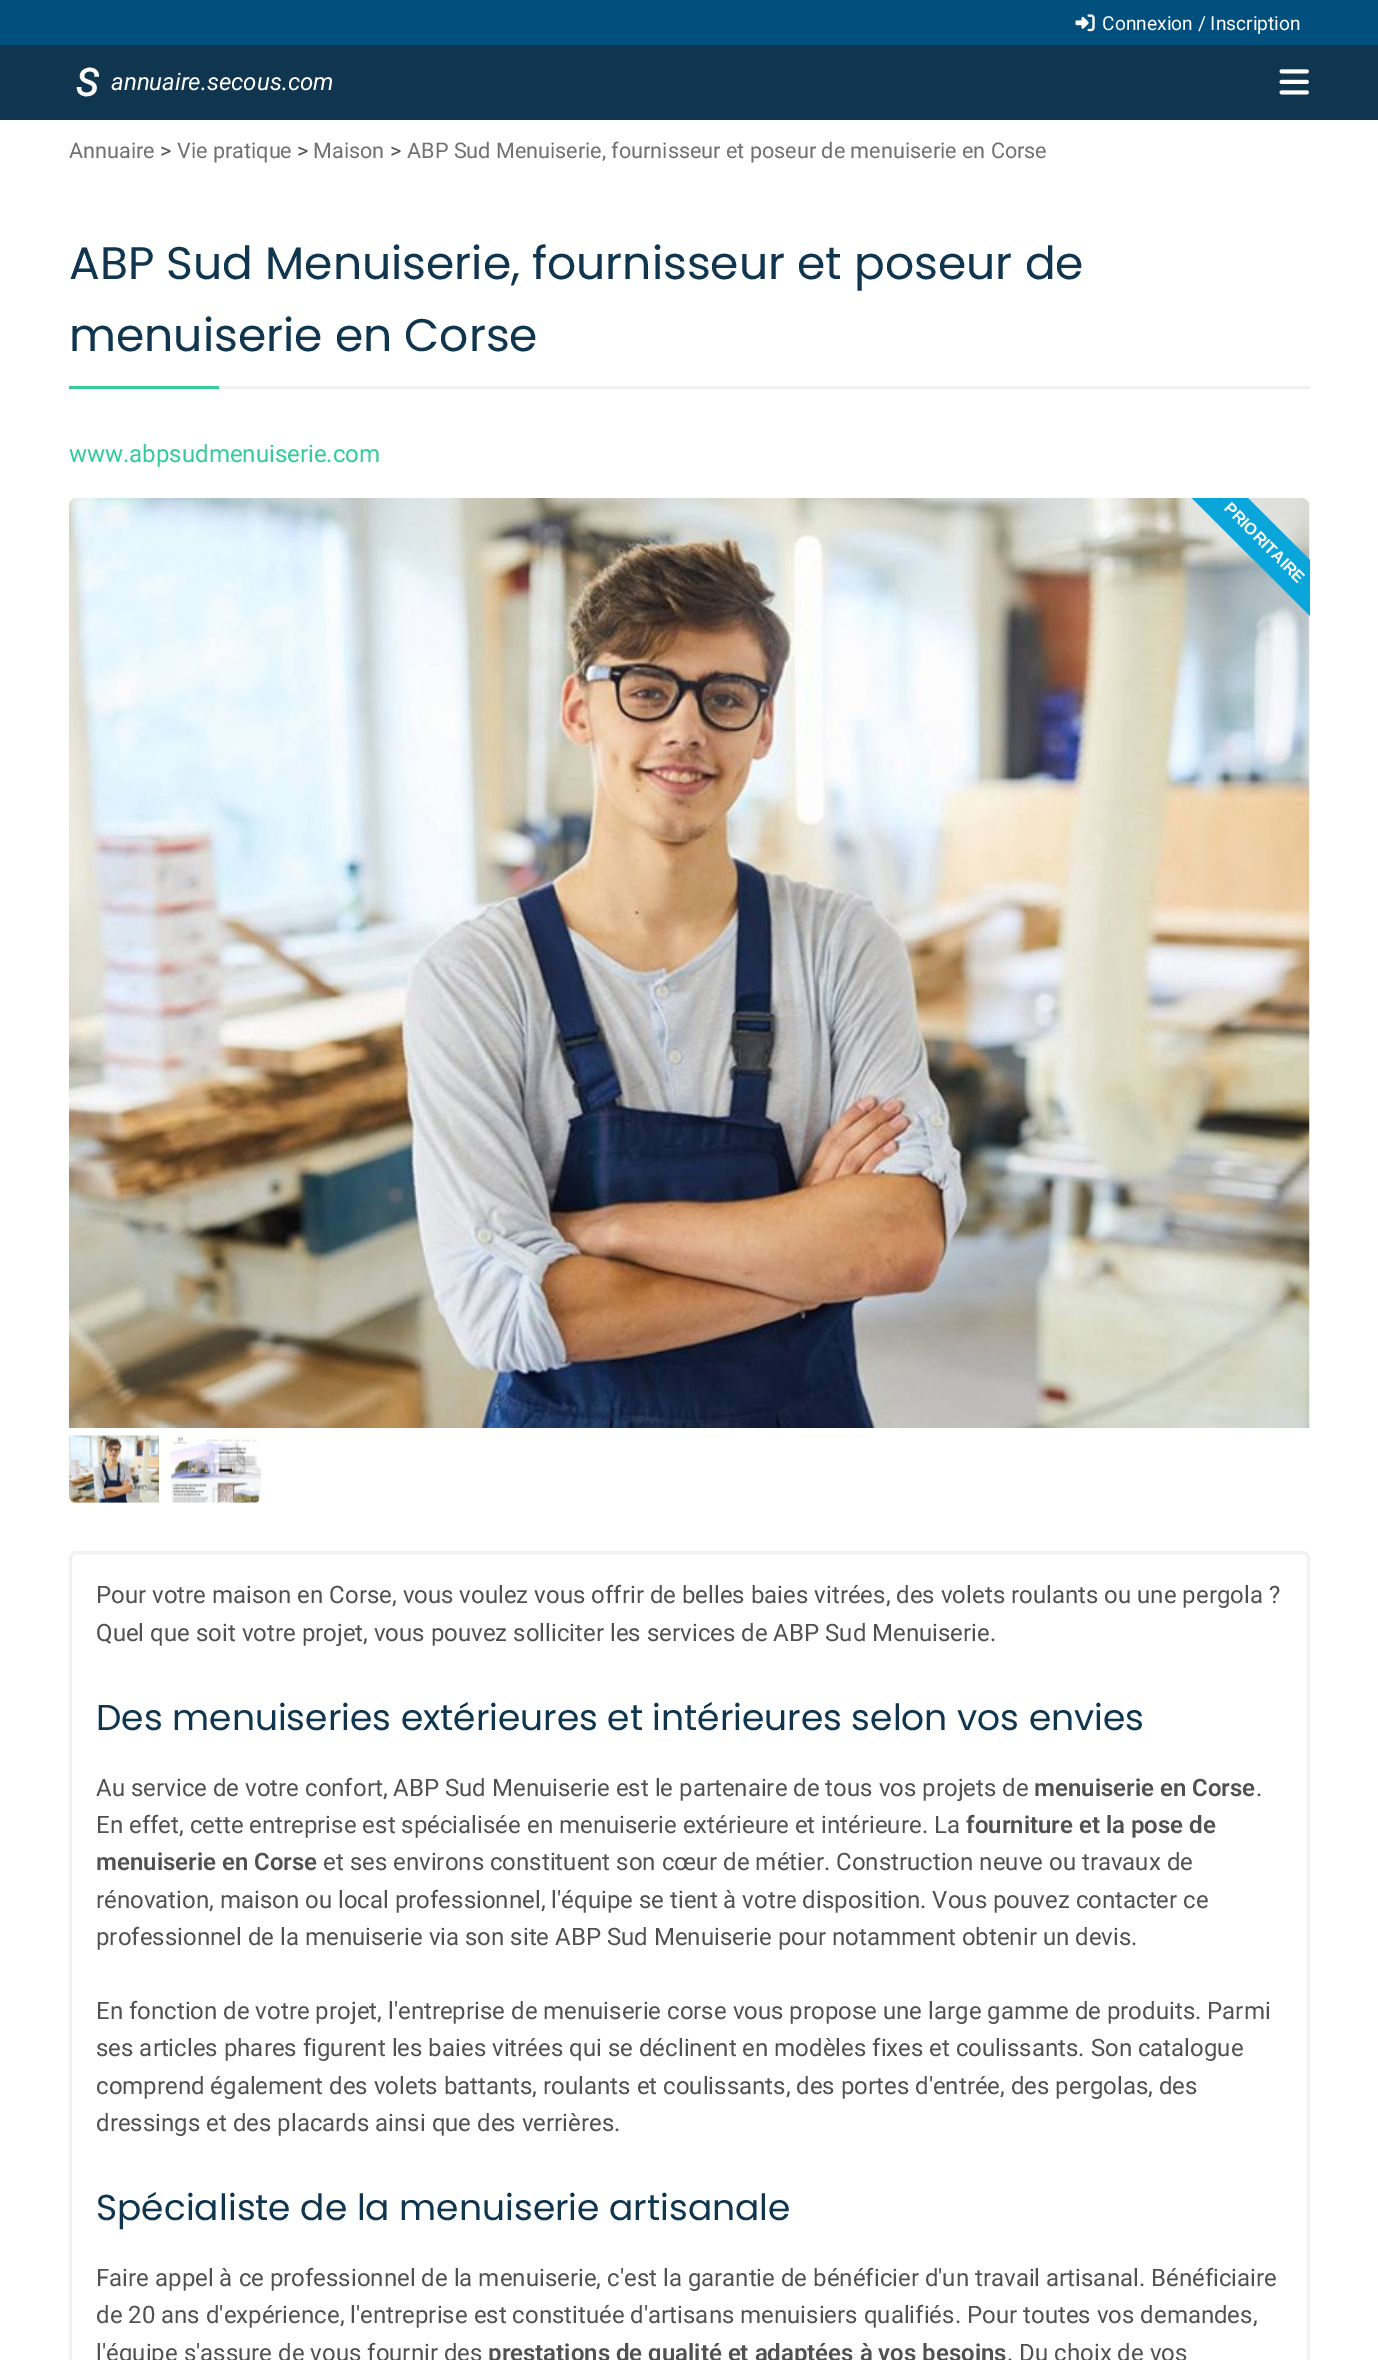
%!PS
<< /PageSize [1378 2360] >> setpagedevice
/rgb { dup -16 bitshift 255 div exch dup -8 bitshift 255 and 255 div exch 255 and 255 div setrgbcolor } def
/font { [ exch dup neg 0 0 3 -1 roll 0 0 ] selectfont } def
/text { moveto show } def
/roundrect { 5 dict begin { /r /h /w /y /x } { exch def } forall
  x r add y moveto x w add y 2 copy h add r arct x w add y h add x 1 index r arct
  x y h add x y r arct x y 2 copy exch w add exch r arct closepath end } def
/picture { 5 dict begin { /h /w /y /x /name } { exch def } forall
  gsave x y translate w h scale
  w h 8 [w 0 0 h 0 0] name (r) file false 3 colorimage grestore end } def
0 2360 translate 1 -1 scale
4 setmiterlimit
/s1 { /Roboto-Regular 19.25 font 16#FFFFFF rgb } def
/s2 { /Roboto-BoldItalic 38 font 16#FFFFFF rgb } def
/s3 { /Roboto-Italic 24 font 16#FFFFFF rgb } def
/s4 { /Roboto-Regular 21.6 font 16#717171 rgb } def
/s5 { /Roboto-Regular 21.6 font 16#515151 rgb } def
/s6 { /Poppins-Regular 45.6 font 16#0F354F rgb } def
/s7 { /Roboto-Regular 24 font 16#33CC99 rgb } def
/s8 { /Roboto-Regular 24 font 16#515151 rgb } def
/s9 { /Poppins-Regular 36 font 16#0F354F rgb } def
/s10 { /Roboto-SemiBold 24 font 16#515151 rgb } def
16#FFFFFF rgb
0 0 1378 2360 rectfill
16#014F7D rgb
0 0 1378 45 rectfill
(pic1.raw) 1075 14 20 18 picture
s1
(Connexion / Inscription) 1102 30 text
16#0F354F rgb
0 45 1378 75 rectfill
s2
(S) 76 96 text
s3
(annuaire.secous.com) 111 90 text
(pic2.raw) 1279 69 30 26 picture
s4
(Annuaire) 69 158 text
s5
(>) 160 158 text
s4
(Vie pratique) 177 158 text
s5
(>) 297 158 text
s4
(Maison) 313 158 text
s5
(>) 390 158 text
s4
(ABP Sud Menuiserie, fournisseur et poseur de menuiserie en Corse) 407 158 text
16#F1F1F1 rgb
219 386 1091 3 rectfill
s6
(ABP Sud Menuiserie, fournisseur et poseur de) 69 279 text
(menuiserie en Corse) 69 351 text
16#33CC99 rgb
69 386 150 3 rectfill
s7
(www.abpsudmenuiserie.com) 69 462 text
(pic3.raw) 69 498 1241 930 picture
gsave
1182 498 128 132 rectclip
16#0AA5DB rgb
1215 465 moveto 1342 592 lineto 1314 620 lineto 1187 493 lineto closepath fill
grestore
/LiberationSans-Bold 16.5 font
16#FFFFFF rgb
gsave 1223 509 translate 45 rotate 0 0 moveto (PRIORITAIRE) show grestore
(pic4.raw) 69 1435 90 68 picture
(pic5.raw) 171 1436 90 67 picture
16#F1F1F1 rgb
3 setlinewidth
70.5 1552.5 1238 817 6.5 roundrect stroke
s8
(Pour votre maison en Corse, vous voulez vous offrir de belles baies vitrées, des volets roulants ou une pergola ?) 96 1603 text
(Quel que soit votre projet, vous pouvez solliciter les services de ABP Sud Menuiserie.) 96 1641 text
s9
(Des menuiseries extérieures et intérieures selon vos envies) 96 1730 text
s8
(Au service de votre confort, ABP Sud Menuiserie est le partenaire de tous vos projets de) 96 1796 text
s10
(menuiserie en Corse) 1034 1796 text
s8
(.) 1256 1796 text
(En effet, cette entreprise est spécialisée en menuiserie extérieure et intérieure. La) 96 1833 text
s10
(fourniture et la pose de) 966 1833 text
(menuiserie en Corse) 96 1870 text
s8
(et ses environs constituent son cœur de métier. Construction neuve ou travaux de) 323 1870 text
(rénovation, maison ou local professionnel, l'équipe se tient à votre disposition. Vous pouvez contacter ce) 96 1908 text
(professionnel de la menuiserie via son site ABP Sud Menuiserie pour notamment obtenir un devis.) 96 1945 text
(En fonction de votre projet, l'entreprise de menuiserie corse vous propose une large gamme de produits. Parmi) 96 2019 text
(ses articles phares figurent les baies vitrées qui se déclinent en modèles fixes et coulissants. Son catalogue) 96 2056 text
(comprend également des volets battants, roulants et coulissants, des portes d'entrée, des pergolas, des) 96 2094 text
(dressings et des placards ainsi que des verrières.) 96 2131 text
s9
(Spécialiste de la menuiserie artisanale) 96 2220 text
s8
(Faire appel à ce professionnel de la menuiserie, c'est la garantie de bénéficier d'un travail artisanal. Bénéficiaire) 96 2286 text
(de 20 ans d'expérience, l'entreprise est constituée d'artisans menuisiers qualifiés. Pour toutes vos demandes,) 96 2323 text
(l'équipe s'assure de vous fournir des) 96 2361 text
s10
(prestations de qualité et adaptées à vos besoins) 488 2361 text
s8
(. Du choix de vos) 1007 2361 text
showpage
